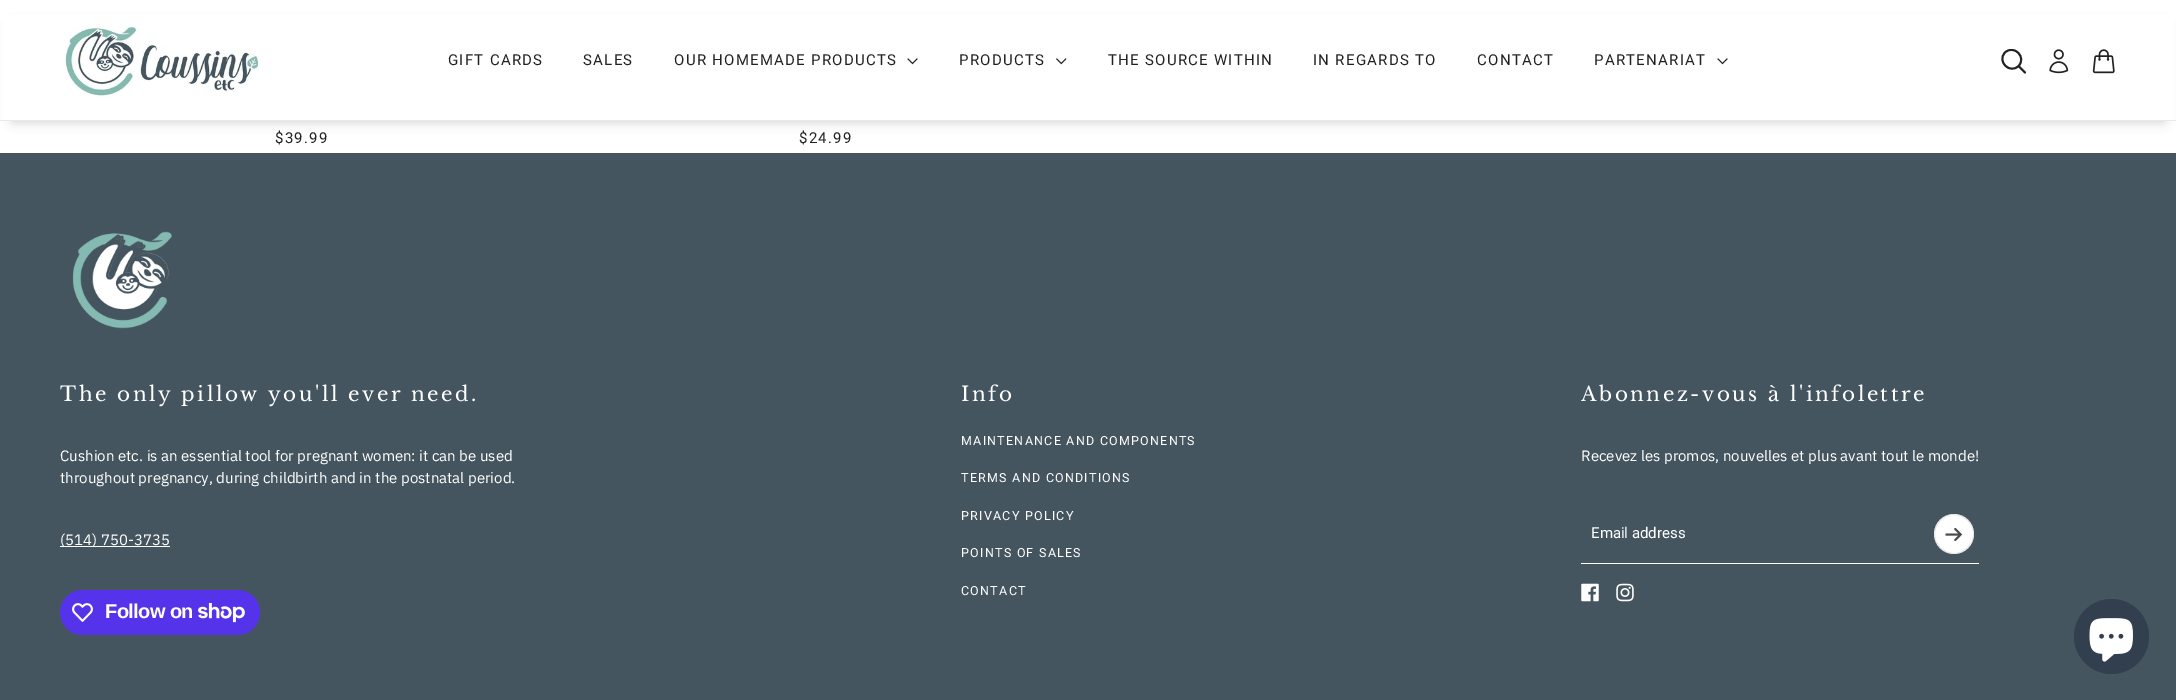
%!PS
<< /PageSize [2176 700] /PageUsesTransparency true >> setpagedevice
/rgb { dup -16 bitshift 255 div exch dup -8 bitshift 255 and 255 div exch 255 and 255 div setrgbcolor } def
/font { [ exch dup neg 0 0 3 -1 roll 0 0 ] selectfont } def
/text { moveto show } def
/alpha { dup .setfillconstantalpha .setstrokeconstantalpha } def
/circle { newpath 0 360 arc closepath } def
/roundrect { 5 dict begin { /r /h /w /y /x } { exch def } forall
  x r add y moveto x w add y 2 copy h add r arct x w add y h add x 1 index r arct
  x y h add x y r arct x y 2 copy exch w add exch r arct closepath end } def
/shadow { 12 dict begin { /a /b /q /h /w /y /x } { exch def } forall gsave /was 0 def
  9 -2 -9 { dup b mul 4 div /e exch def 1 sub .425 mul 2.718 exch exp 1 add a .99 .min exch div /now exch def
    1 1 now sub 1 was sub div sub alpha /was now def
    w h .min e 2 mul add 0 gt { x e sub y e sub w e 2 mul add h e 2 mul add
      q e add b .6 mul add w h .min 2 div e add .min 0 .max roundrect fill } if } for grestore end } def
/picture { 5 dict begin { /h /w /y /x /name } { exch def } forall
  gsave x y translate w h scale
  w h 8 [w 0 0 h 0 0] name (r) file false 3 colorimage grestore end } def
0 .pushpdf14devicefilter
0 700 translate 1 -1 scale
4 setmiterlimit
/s1 { /IBMPlexSans-Regular 15 font 16#FFFFFF rgb } def
/s2 { /Roboto-Regular 15 font 16#FFFFFF rgb } def
16#FFFFFF rgb
0 0 2176 700 rectfill
16#000000 rgb
13 25 2151 96 0 6 0.2 shadow
16#FFFFFF rgb
3 15 2171 105 rectfill
(pic1.raw) 64 25 195 72 picture
/Roboto-Regular 15 font
16#222222 rgb
448 65 moveto 1.25 0 (GIFT CARDS) ashow
583 65 moveto 1.25 0 (SALES) ashow
674 65 moveto 1.25 0 (OUR HOMEMADE PRODUCTS) ashow
(pic2.raw) 907 58 11 7 picture
959 65 moveto 1.25 0 (PRODUCTS) ashow
(pic3.raw) 1056 58 11 7 picture
1108 65 moveto 1.25 0 (THE SOURCE WITHIN) ashow
1313 65 moveto 1.25 0 (IN REGARDS TO) ashow
1477 65 moveto 1.25 0 (CONTACT) ashow
1594 65 moveto 1.25 0 (PARTENARIAT) ashow
(pic2.raw) 1717 58 11 7 picture
gsave
2001 49 25 25 rectclip
1.9 setlinewidth
1 setlinecap
1 setlinejoin
2025 72.5 moveto 2018.5 66 lineto 2018.5 66 moveto 2027 57.5 2014 44 2005 52.5 curveto 1996.5 61.5 2010 74.5 2018.5 66 curveto closepath stroke
grestore
(pic4.raw) 2049 49 20 25 picture
(pic5.raw) 2092 49 23 25 picture
16#E9E9E9 rgb
0 120 2176 1 rectfill
16#222222 rgb
275 143 moveto 1.25 0 ($39.99) ashow
799 143 moveto 1.25 0 ($24.99) ashow
16#455560 rgb
0 153 2176 547 rectfill
(pic6.raw) 72 231 100 98 picture
/LibreBaskerville-Regular 20 font
16#FFFFFF rgb
60 401 moveto 2.5 0 (The only pillow you'll ever need.) ashow
s1
(Cushion etc. is an essential tool for pregnant women: it can be used) 60 461 text
(throughout pregnancy, during childbirth and in the postnatal period.) 60 483 text
60 546 110 1 rectfill
(\(514\) 750-3735) 60 545 text
16#5433EB rgb
60 590 200 45 22.5 roundrect fill
(pic7.raw) 72 603 21 19 picture
/LiberationSans-Bold 20 font
16#FFFFFF rgb
105 618 moveto -0.6 0 (Follow on) ashow
(pic8.raw) 198 603 47 20 picture
/LibreBaskerville-Regular 20 font
961 401 moveto 2.5 0 (Info) ashow
/Roboto-Regular 12.5 font
961 445 moveto 1.25 0 (MAINTENANCE AND COMPONENTS) ashow
961 482 moveto 1.25 0 (TERMS AND CONDITIONS) ashow
961 520 moveto 1.25 0 (PRIVACY POLICY) ashow
961 557 moveto 1.25 0 (POINTS OF SALES) ashow
961 595 moveto 1.25 0 (CONTACT) ashow
/LibreBaskerville-Regular 20 font
1581 401 moveto 2.5 0 (Abonnez-vous à l'infolettre) ashow
s1
(Recevez les promos, nouvelles et plus avant tout le monde!) 1581 461 text
1581 563 398 1 rectfill
s2
(Email address) 1591 538 text
1954 534 20 circle fill
0.1 alpha
16#222222 rgb
1954 534 19.5 circle stroke
1 alpha
(pic9.raw) 1945 527 18 14 picture
(pic10.raw) 1581 583 18 19 picture
(pic11.raw) 1616 583 18 19 picture
16#323F4E rgb
2111.5 636.5 37.5 circle fill
(pic12.raw) 2089 618 44 44 picture
.poppdf14devicefilter showpage
